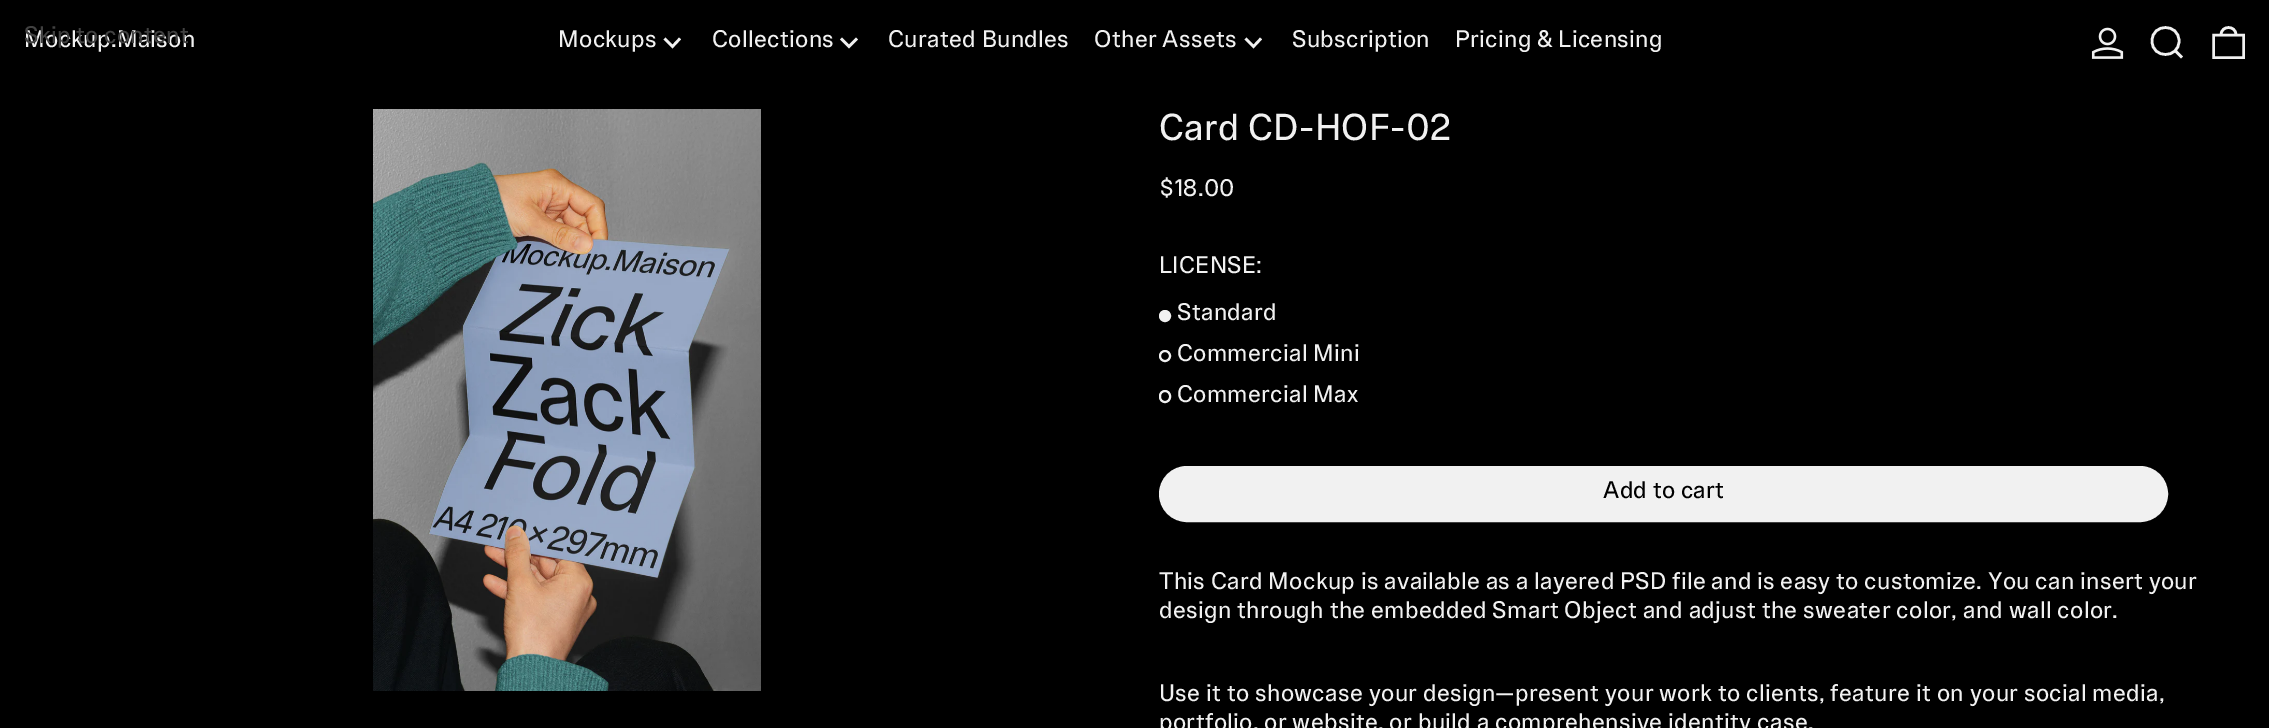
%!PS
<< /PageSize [2269 728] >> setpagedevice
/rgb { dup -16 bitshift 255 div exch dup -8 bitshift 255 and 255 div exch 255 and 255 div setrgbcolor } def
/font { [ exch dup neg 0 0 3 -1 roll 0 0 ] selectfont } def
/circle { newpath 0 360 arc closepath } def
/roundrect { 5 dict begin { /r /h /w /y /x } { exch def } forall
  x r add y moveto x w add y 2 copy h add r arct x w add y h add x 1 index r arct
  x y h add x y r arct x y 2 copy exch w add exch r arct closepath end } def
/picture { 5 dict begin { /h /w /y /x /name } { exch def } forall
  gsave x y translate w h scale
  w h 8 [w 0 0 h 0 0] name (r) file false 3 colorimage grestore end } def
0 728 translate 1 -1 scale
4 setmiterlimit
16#000000 rgb
0 0 2269 728 rectfill
/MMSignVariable-Regular 24.05 font
16#F1F1F1 rgb
24 47 moveto 0.35 0 (Mockup.Maison) ashow
16#414141 rgb
24 43 moveto 0.35 0 (Skip to content) ashow
16#F1F1F1 rgb
558 47 moveto 0.35 0 (Mockups) ashow
2.6 setlinewidth
664.5 38.5 moveto 672.5 46.5 lineto 680 38.5 lineto stroke
712 47 moveto 0.35 0 (Collections) ashow
841 38.5 moveto 849 46.5 lineto 857 38.5 lineto stroke
888 47 moveto 0.35 0 (Curated Bundles) ashow
1094 47 moveto 0.35 0 (Other Assets) ashow
1245.5 38.5 moveto 1253.5 46.5 lineto 1261 38.5 lineto stroke
1292 47 moveto 0.35 0 (Subscription) ashow
1455 47 moveto 0.35 0 (Pricing & Licensing) ashow
(pic1.raw) 2091 27 33 32 picture
2152 41 moveto 2152 59 2179 59 2179 41 curveto 2179 23 2152 23 2152 41 curveto closepath 2175 50.5 moveto 2182 57.5 lineto stroke
2213.5 35 moveto 2243.5 35 lineto 2243.5 57.5 lineto 2213.5 57.5 lineto closepath 2236 35 moveto 2236 25 2221 25 2221 35 curveto stroke
(pic2.raw) 373 109 388 582 picture
/MMSignVariable-Regular 37.5 font
1159 140 moveto 0.4 0 (Card CD-HOF-02) ashow
/MMSignVariable-Regular 24.05 font
1159 196 moveto 0.35 0 ($18.00) ashow
1159 273 moveto 0.35 0 (LICENSE:) ashow
1165 316 5 circle gsave fill grestore
2 setlinewidth
stroke
1177 320 moveto 0.35 0 (Standard) ashow
1165 356 5 circle stroke
1177 361 moveto 0.35 0 (Commercial Mini) ashow
1160 391 10 11 5 roundrect stroke
1177 402 moveto 0.35 0 (Commercial Max) ashow
1160 467 1007 54 27 roundrect gsave fill grestore
stroke
16#000000 rgb
1603 498 moveto 0.35 0 (Add to cart) ashow
16#F1F1F1 rgb
1159 589 moveto 0.1 0 32 0.35 0 (This Card Mockup is available as a layered PSD file and is easy to customize. You can insert your) awidthshow
1159 618 moveto 0.25 0 32 0.35 0 (design through the embedded Smart Object and adjust the sweater color, and wall color.) awidthshow
1159 701 moveto 0.25 0 32 0.35 0 (Use it to showcase your design—present your work to clients, feature it on your social media,) awidthshow
1159 730 moveto 0.25 0 32 0.35 0 (portfolio, or website, or build a comprehensive identity case.) awidthshow
showpage
